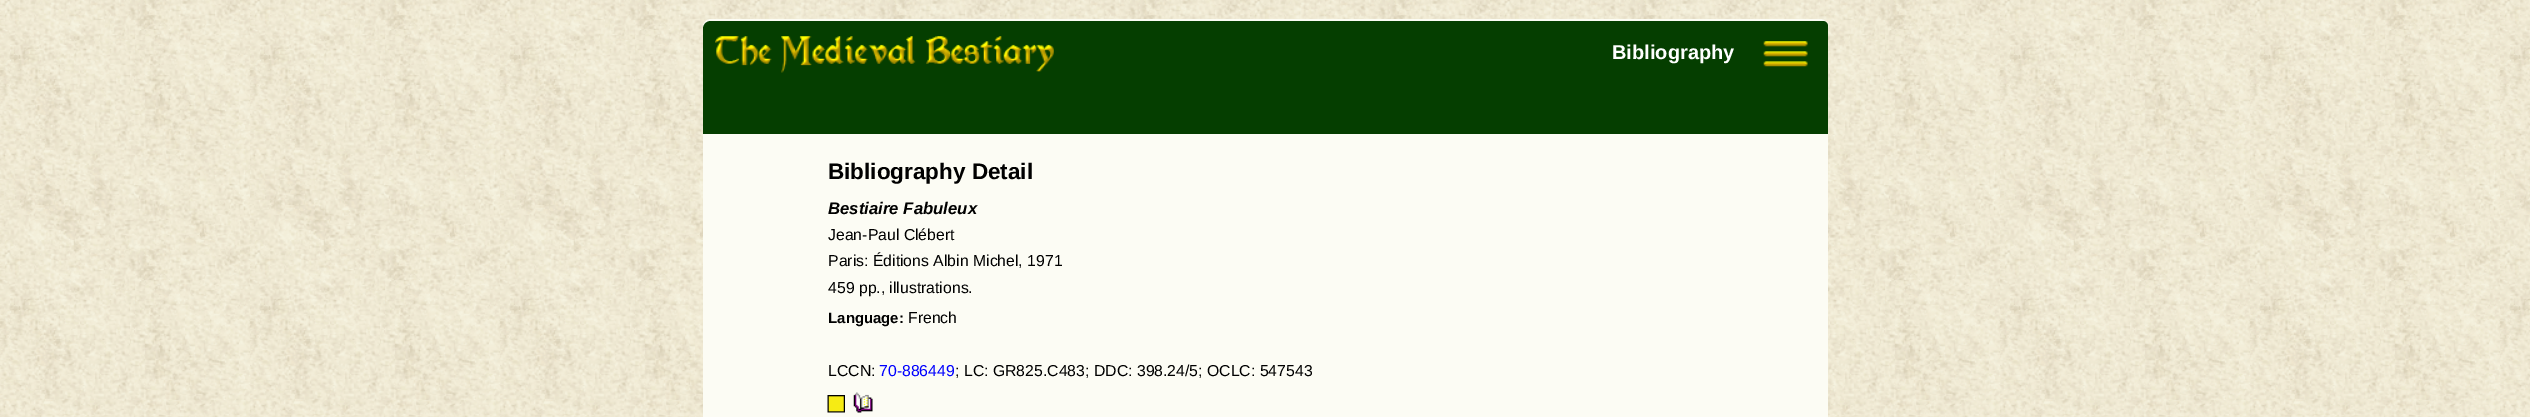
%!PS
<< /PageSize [2530 417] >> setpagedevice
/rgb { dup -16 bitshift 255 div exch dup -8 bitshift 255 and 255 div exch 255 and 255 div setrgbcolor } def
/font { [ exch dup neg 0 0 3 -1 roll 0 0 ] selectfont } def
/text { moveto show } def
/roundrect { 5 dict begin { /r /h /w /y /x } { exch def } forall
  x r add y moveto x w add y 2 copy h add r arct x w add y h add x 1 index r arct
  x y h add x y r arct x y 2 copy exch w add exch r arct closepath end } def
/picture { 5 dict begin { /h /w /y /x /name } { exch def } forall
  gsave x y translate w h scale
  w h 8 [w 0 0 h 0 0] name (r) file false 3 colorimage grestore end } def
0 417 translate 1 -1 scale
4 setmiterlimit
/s1 { /LiberationSans-Bold 20 font 16#FFFFFF rgb } def
/s2 { /LiberationSans-Bold 22.5 font 16#000000 rgb } def
/s3 { /LiberationSans-BoldItalic 16.75 font 16#000000 rgb } def
/s4 { /LiberationSans-Regular 15.8 font 16#000000 rgb } def
/s5 { /LiberationSans-Bold 15 font 16#000000 rgb } def
/s6 { /LiberationSans-Regular 15.8 font 16#0000FF rgb } def
16#FFFFFF rgb
0 0 2530 417 rectfill
(pic1.raw) 0 0 2530 417 picture
16#FCFCF4 rgb
703 19 1125 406 8 roundrect fill
16#053E00 rgb
711 21 moveto 1820 21 lineto 1824.5 21 1828 24.5 1828 29 curveto 1828 134 lineto 703 134 lineto 703 29 lineto 703 24.5 706.5 21 711 21 curveto closepath fill
(pic2.raw) 715 36 339 37 picture
s1
(Bibliography) 1612 59 text
16#053E00 rgb
1744 21 84 69 5 roundrect fill
(pic3.raw) 1763 41 45 26 picture
s2
(Bibliography Detail) 828 179 text
s3
(Bestiaire Fabuleux) 828 214 text
s4
(Jean-Paul Clébert) 828 240 text
(Paris: Éditions Albin Michel, 1971) 828 266 text
(459 pp., illustrations.) 828 293 text
s5
(Language:) 828 323 text
s4
(French) 908 323 text
(LCCN:) 828 376 text
s6
(70-886449) 879 376 text
s4
(; LC: GR825.C483; DDC: 398.24/5; OCLC: 547543) 955 376 text
(pic4.raw) 827 395 18 18 picture
(pic5.raw) 853 392 20 21 picture
showpage
